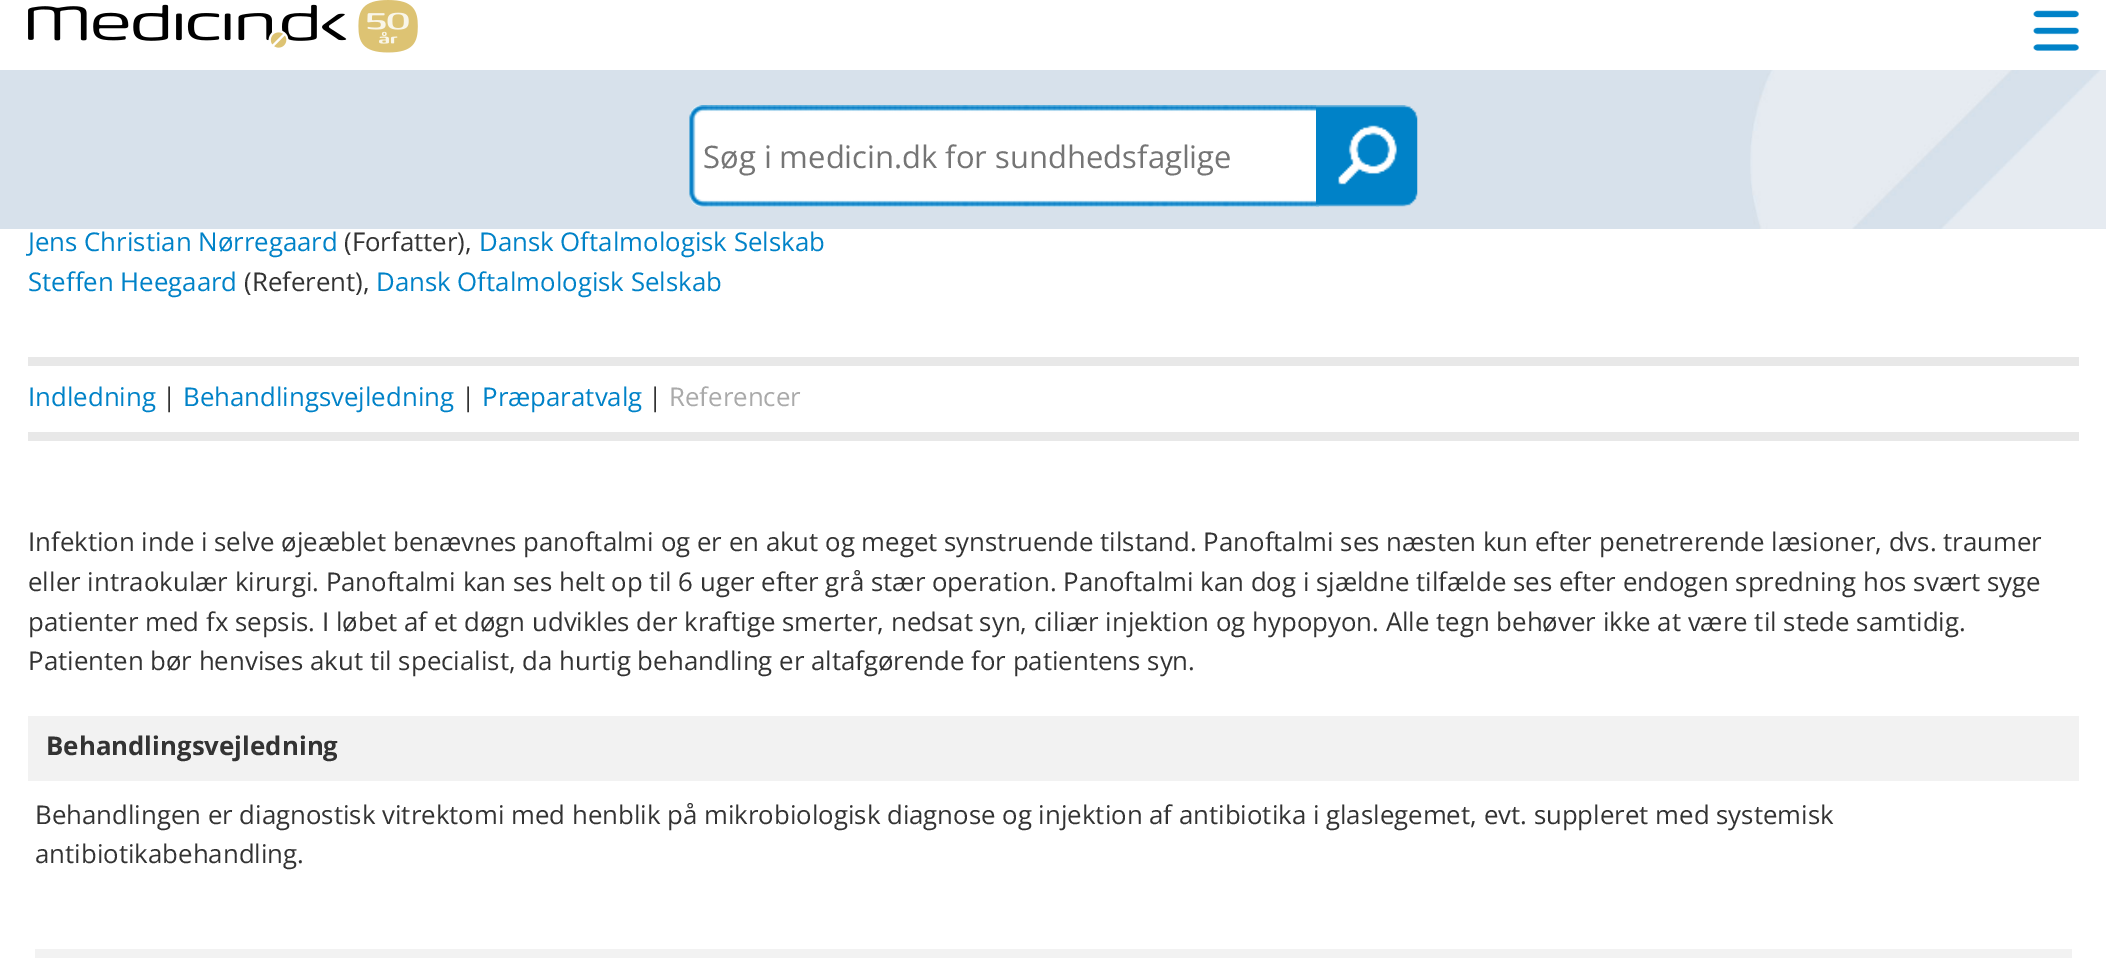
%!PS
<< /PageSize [2106 958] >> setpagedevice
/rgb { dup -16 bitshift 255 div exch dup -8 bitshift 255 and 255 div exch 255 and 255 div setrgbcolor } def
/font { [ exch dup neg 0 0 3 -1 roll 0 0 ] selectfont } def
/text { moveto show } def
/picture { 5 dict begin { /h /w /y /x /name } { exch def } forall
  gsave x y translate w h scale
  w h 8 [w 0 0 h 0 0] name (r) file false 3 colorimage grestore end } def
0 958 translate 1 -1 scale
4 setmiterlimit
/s1 { /OpenSans-Regular 31 font 16#757575 rgb } def
/s2 { /OpenSans-Regular 25.8 font 16#0082C8 rgb } def
/s3 { /OpenSans-Regular 25.8 font 16#333333 rgb } def
/s4 { /OpenSans-Regular 25.8 font 16#AAAAAA rgb } def
/s5 { /OpenSans-Bold 25.8 font 16#333333 rgb } def
16#FFFFFF rgb
0 0 2106 958 rectfill
(pic1.raw) 28 0 390 53 picture
(pic2.raw) 2033 10 46 41 picture
16#D7E1EB rgb
0 70 2106 159 rectfill
(pic3.raw) 1750 70 356 159 picture
16#FFFFFF rgb
702 105 moveto 1320 105 lineto 1320 207 lineto 702 207 lineto 695.5 207 690 201.5 690 195 curveto 690 117 lineto 690 110.5 695.5 105 702 105 curveto closepath fill
(pic4.raw) 689 105 631 102 picture
s1
(Søg i medicin.dk for sundhedsfaglige) 703 168 text
(pic5.raw) 1316 105 102 102 picture
s2
(Jens Christian Nørregaard) 28 251 text
s3
(\(Forfatter\),) 344 251 text
s2
(Dansk Oftalmologisk Selskab) 479 251 text
(Steffen Heegaard) 28 291 text
s3
(\(Referent\),) 244 291 text
s2
(Dansk Oftalmologisk Selskab) 376 291 text
16#E8E8E8 rgb
28 357 2051 9 rectfill
28 432 2051 9 rectfill
s2
(Indledning) 28 406 text
s3
(|) 162 406 text
s2
(Behandlingsvejledning) 183 406 text
s3
(|) 461 406 text
s2
(Præparatvalg) 482 406 text
s3
(|) 648 406 text
s4
(Referencer) 669 406 text
s3
(Infektion inde i selve øjeæblet benævnes panoftalmi og er en akut og meget synstruende tilstand. Panoftalmi ses næsten kun efter penetrerende læsioner, dvs. traumer) 28 551 text
(eller intraokulær kirurgi. Panoftalmi kan ses helt op til 6 uger efter grå stær operation. Panoftalmi kan dog i sjældne tilfælde ses efter endogen spredning hos svært syge) 28 591 text
(patienter med fx sepsis. I løbet af et døgn udvikles der kraftige smerter, nedsat syn, ciliær injektion og hypopyon. Alle tegn behøver ikke at være til stede samtidig.) 28 631 text
(Patienten bør henvises akut til specialist, da hurtig behandling er altafgørende for patientens syn.) 28 670 text
16#F2F2F2 rgb
28 716 2051 65 rectfill
s5
(Behandlingsvejledning) 46 755 text
s3
(Behandlingen er diagnostisk vitrektomi med henblik på mikrobiologisk diagnose og injektion af antibiotika i glaslegemet, evt. suppleret med systemisk) 35 824 text
(antibiotikabehandling.) 35 863 text
16#F2F2F2 rgb
35 949 2037 9 rectfill
showpage
